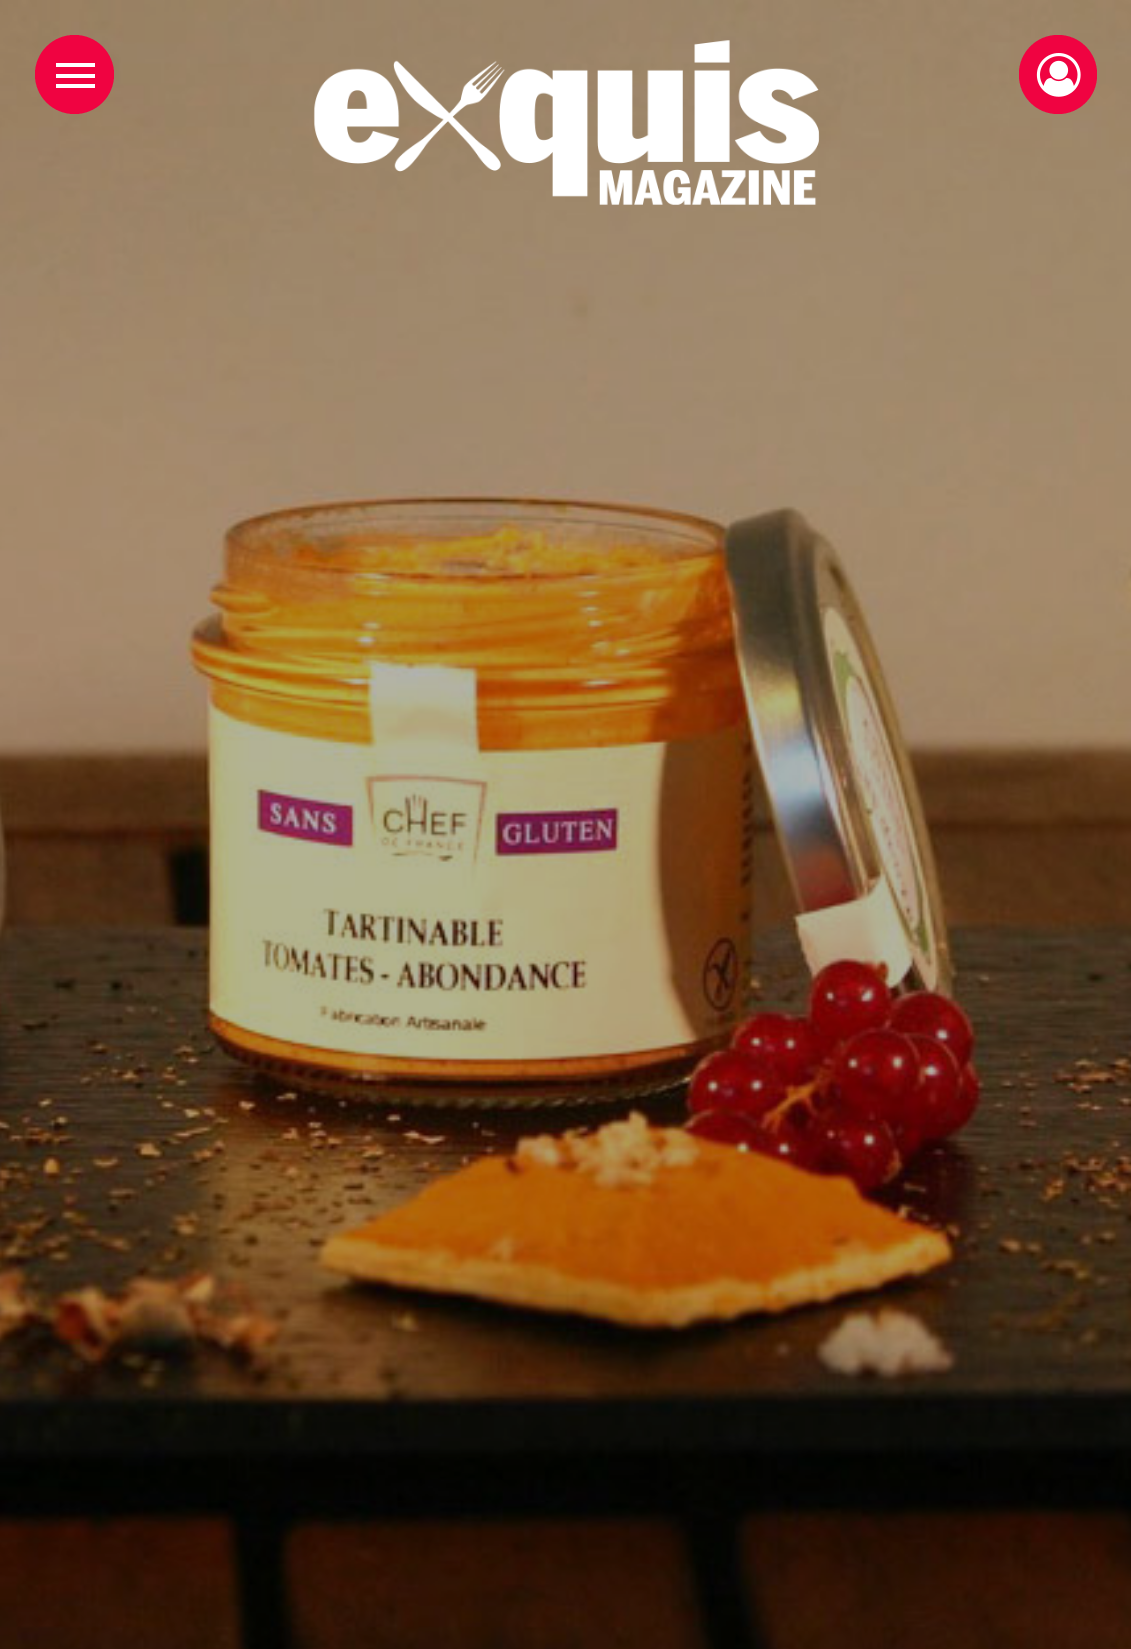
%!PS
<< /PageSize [1131 1649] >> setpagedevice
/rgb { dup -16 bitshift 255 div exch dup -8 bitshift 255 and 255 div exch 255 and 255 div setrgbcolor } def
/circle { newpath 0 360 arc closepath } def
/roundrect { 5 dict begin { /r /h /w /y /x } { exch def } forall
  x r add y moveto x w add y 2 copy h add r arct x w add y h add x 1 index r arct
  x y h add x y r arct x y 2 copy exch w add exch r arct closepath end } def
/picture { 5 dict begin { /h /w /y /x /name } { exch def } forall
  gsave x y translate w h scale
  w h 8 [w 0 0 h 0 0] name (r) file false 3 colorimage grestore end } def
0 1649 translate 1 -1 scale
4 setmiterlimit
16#FFFFFF rgb
0 0 1131 1649 rectfill
(pic1.raw) 0 0 1131 1649 picture
16#F00341 rgb
74.5 74.5 39.5 circle fill
16#FFFFFF rgb
56 74 39 4 rectfill
56 63 39 4 rectfill
56 84 39 4 rectfill
(pic2.raw) 313 40 507 165 picture
16#F00341 rgb
1019 35 78 79 39 roundrect fill
(pic3.raw) 1036 53 45 44 picture
showpage
